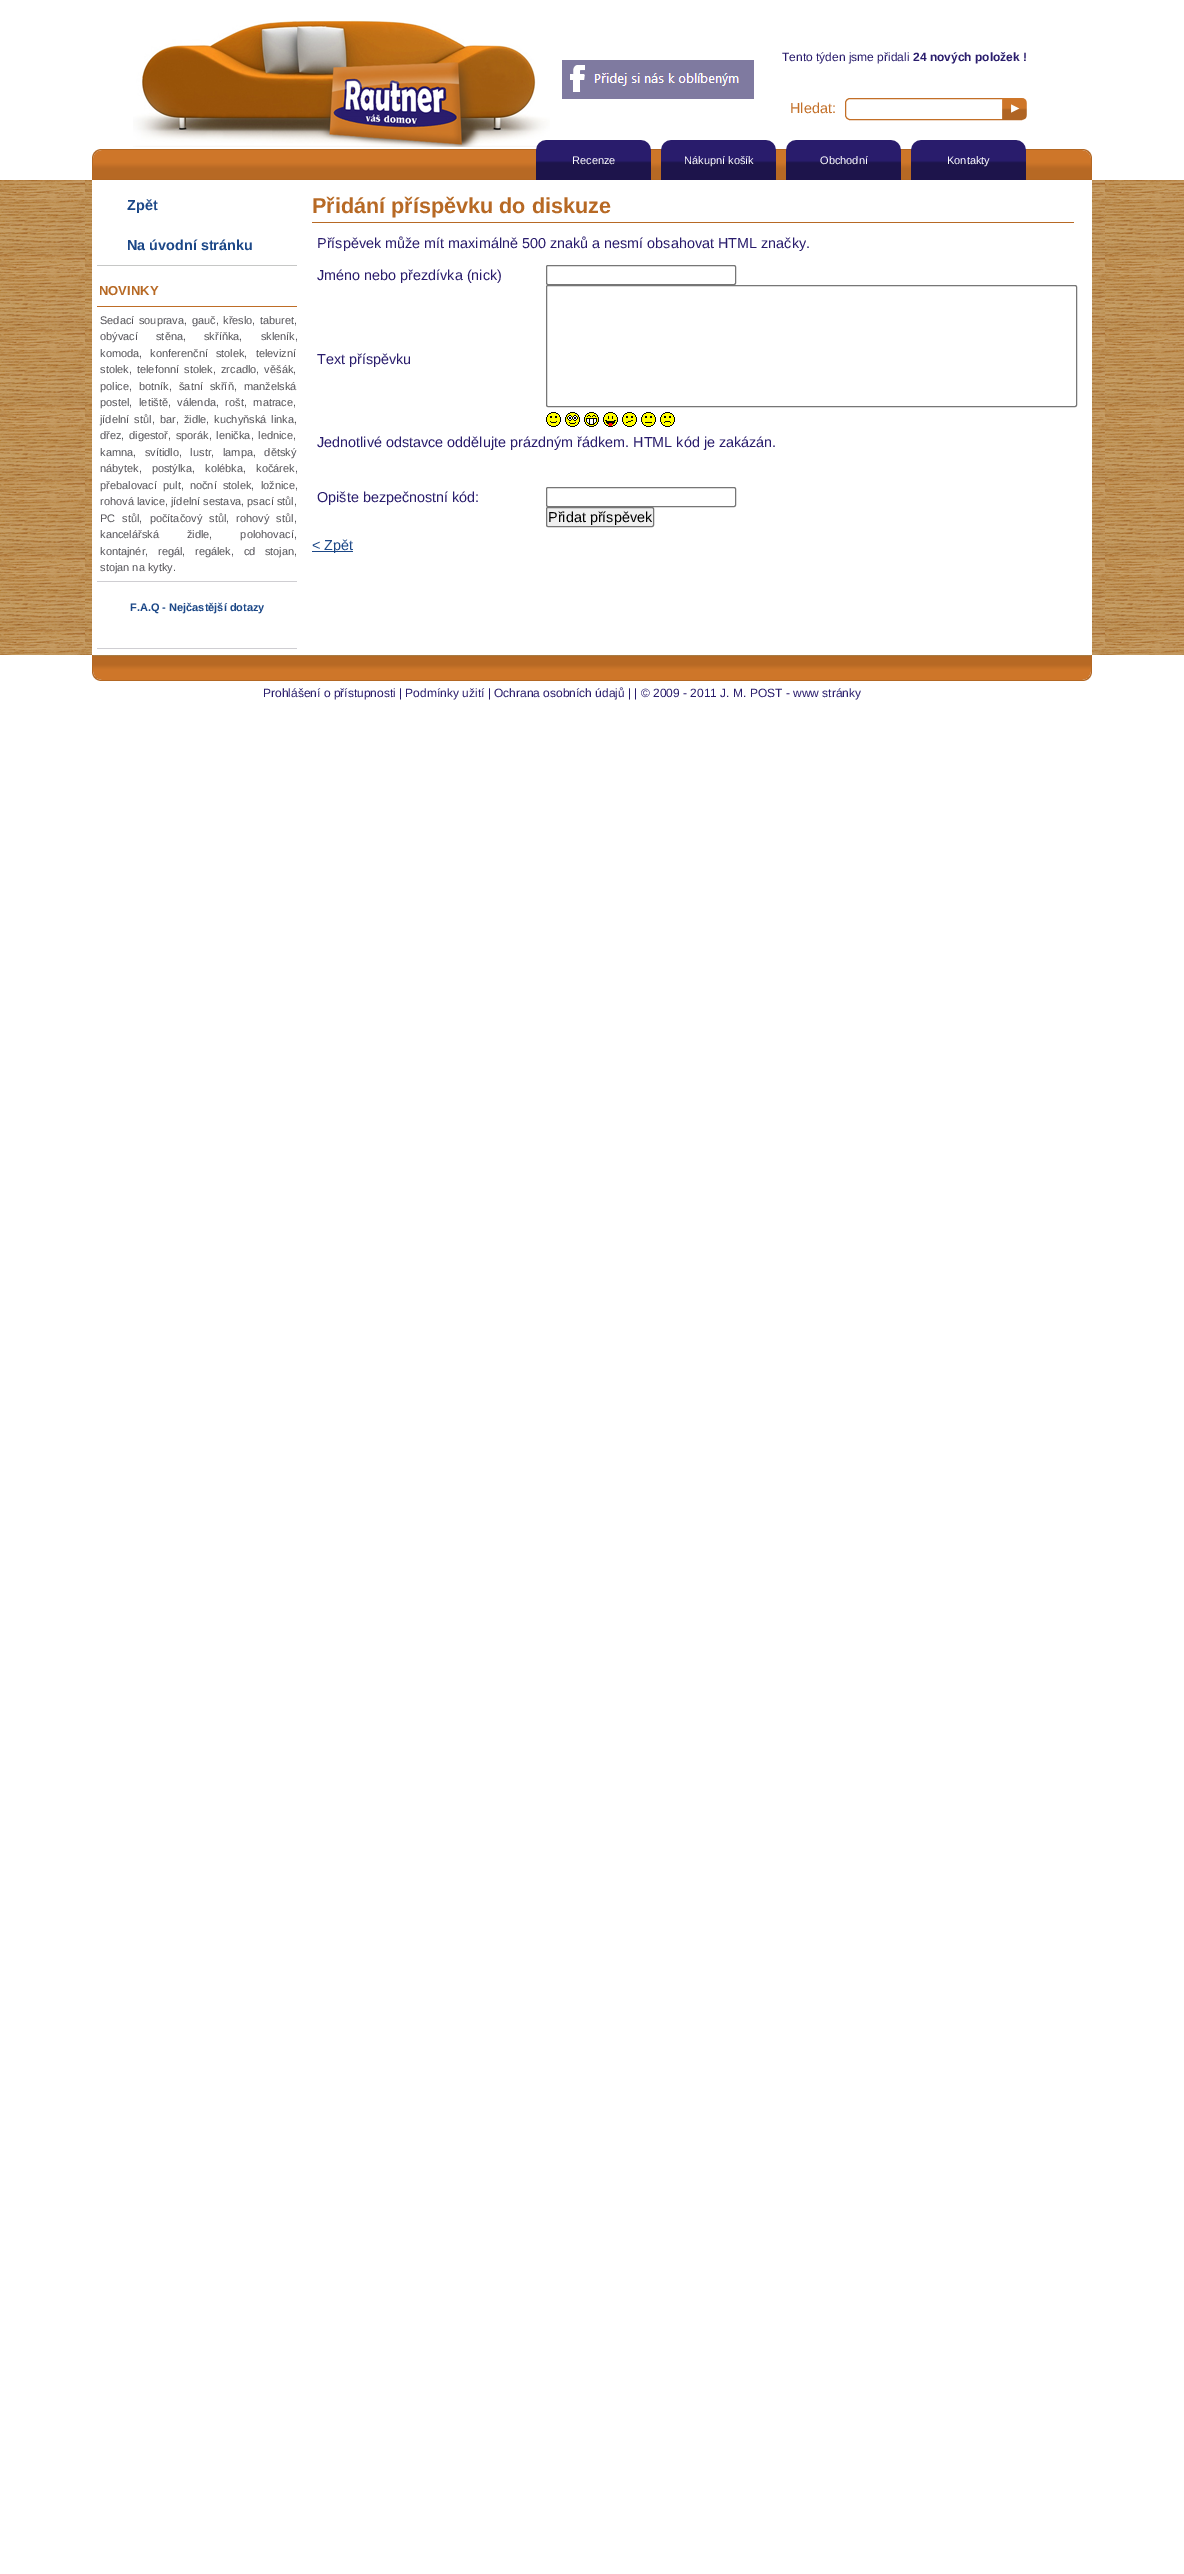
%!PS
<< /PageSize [1184 2574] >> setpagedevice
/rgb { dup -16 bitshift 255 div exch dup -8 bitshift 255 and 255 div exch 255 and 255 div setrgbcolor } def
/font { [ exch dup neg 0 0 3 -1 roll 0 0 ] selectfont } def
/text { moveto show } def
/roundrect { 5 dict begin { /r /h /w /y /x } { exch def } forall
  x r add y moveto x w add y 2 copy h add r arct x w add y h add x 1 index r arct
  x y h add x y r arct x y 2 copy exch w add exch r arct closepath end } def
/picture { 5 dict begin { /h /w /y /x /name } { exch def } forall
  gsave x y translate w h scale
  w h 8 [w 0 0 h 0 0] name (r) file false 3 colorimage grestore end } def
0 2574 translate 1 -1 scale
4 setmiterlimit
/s1 { /LiberationSans-Regular 12 font 16#291C6C rgb } def
/s2 { /LiberationSans-Bold 12 font 16#291C6C rgb } def
/s3 { /LiberationSans-Regular 14.4 font 16#C36F27 rgb } def
/s4 { /LiberationSans-Regular 11 font 16#FFFFFF rgb } def
/s5 { /LiberationSans-Bold 14.4 font 16#1B4787 rgb } def
/s6 { /LiberationSans-Bold 13 font 16#B76924 rgb } def
/s7 { /LiberationSans-Regular 11 font 16#555459 rgb } def
/s8 { /LiberationSans-Bold 11 font 16#1B4787 rgb } def
/s9 { /LiberationSans-Bold 21.6 font 16#B76924 rgb } def
/s10 { /LiberationSans-Regular 14.4 font 16#291C6C rgb } def
/s11 { /LiberationSans-Regular 14.4 font 16#000000 rgb } def
/s12 { /LiberationSans-Regular 14.4 font 16#1B4787 rgb } def
16#FFFFFF rgb
0 0 1184 2574 rectfill
(pic1.raw) 133 20 417 127 picture
s1
(Tento týden jsme přidali) 782 61 text
s2
(24 nových položek !) 913 61 text
(pic2.raw) 562 60 192 39 picture
s3
(Hledat:) 790 113 text
850 98.5 moveto 1021.5 98.5 lineto 1021.5 119.5 lineto 850 119.5 lineto 847.5 119.5 845.5 117.5 845.5 115 curveto 845.5 103 lineto 845.5 100.5 847.5 98.5 850 98.5 curveto closepath stroke
(pic3.raw) 1002 98 25 22 picture
(pic4.raw) 93 150 998 30 picture
16#B36723 rgb
102 149 moveto 1082 149 lineto 1088 149 1092 153 1092 159 curveto 1092 180 lineto 92 180 lineto 92 159 lineto 92 153 96 149 102 149 curveto closepath 102 150 moveto 1082 150 lineto 1087 150 1091 154 1091 159 curveto 1091 180 lineto 93 180 lineto 93 159 lineto 93 154 97 150 102 150 curveto closepath eofill
(pic5.raw) 536 140 115 40 picture
s4
(Recenze) 572 164 text
(pic6.raw) 661 140 115 40 picture
(Nákupní košík) 684 164 text
(pic6.raw) 786 140 115 40 picture
(Obchodní) 820 164 text
(pic7.raw) 911 140 115 40 picture
(Kontakty) 947 164 text
(pic8.raw) 0 180 1184 475 picture
92 180 1000 475 rectfill
s5
(Zpět) 127 210 text
16#C6C7C6 rgb
97 265 200 1 rectfill
s5
(Na úvodní stránku) 127 250 text
16#BE6D26 rgb
97 306 200 1 rectfill
s6
(NOVINKY) 99 295 text
16#CFCED2 rgb
97 581 200 1 rectfill
/LiberationSans-Regular 11 font
16#555459 rgb
100 324 moveto 1.5 0 32 (Sedací souprava, gauč, křeslo, taburet,) widthshow
100 340 moveto 15 0 32 (obývací stěna, skříňka, skleník,) widthshow
100 357 moveto 5 0 32 (komoda, konferenční stolek, televizní) widthshow
100 373 moveto 2 0 32 (stolek, telefonní stolek, zrcadlo, věšák,) widthshow
100 390 moveto 4 0 32 (police, botník, šatní skříň, manželská) widthshow
100 406 moveto 3.5 0 32 (postel, letiště, válenda, rošt, matrace,) widthshow
100 423 moveto 2 0 32 (jídelní stůl, bar, židle, kuchyňská linka,) widthshow
100 439 moveto 1.5 0 32 (dřez, digestoř, sporák, lenička, lednice,) widthshow
100 456 moveto 5.5 0 32 (kamna, svítidlo, lustr, lampa, dětský) widthshow
100 472 moveto 7 0 32 (nábytek, postýlka, kolébka, kočárek,) widthshow
100 489 moveto 3 0 32 (přebalovací pult, noční stolek, ložnice,) widthshow
(rohová lavice, jídelní sestava, psací stůl,) 100 505 text
100 522 moveto 4 0 32 (PC stůl, počítačový stůl, rohový stůl,) widthshow
100 538 moveto 25 0 32 (kancelářská židle, polohovací,) widthshow
100 555 moveto 6.5 0 32 (kontajnér, regál, regálek, cd stojan,) widthshow
(stojan na kytky.) 100 571 text
16#CFCED2 rgb
97 648 200 1 rectfill
s8
(F.A.Q - Nejčastější dotazy) 130 611 text
16#B76924 rgb
312 222 762 1 rectfill
s9
(Přidání příspěvku do diskuze) 312 213 text
s10
(Příspěvek může mít maximálně 500 znaků a nesmí obsahovat HTML značky.) 317 248 text
(Jméno nebo přezdívka \(nick\)) 317 280 text
16#767676 rgb
546.5 265.5 189 19 1.5 roundrect stroke
s10
(Text příspěvku) 317 364 text
16#767676 rgb
546.5 285.5 530 121 1.5 roundrect stroke
(pic9.raw) 546 412 15 15 picture
(pic10.raw) 565 412 15 15 picture
(pic11.raw) 584 412 15 15 picture
(pic12.raw) 603 412 15 15 picture
(pic13.raw) 622 412 15 15 picture
(pic14.raw) 641 412 15 15 picture
(pic15.raw) 660 412 15 15 picture
s10
(Jednotlivé odstavce oddělujte prázdným řádkem. HTML kód je zakázán.) 317 447 text
(Opište bezpečnostní kód:) 317 502 text
16#767676 rgb
546.5 487.5 189 19 1.5 roundrect stroke
16#EFEFEF rgb
546.5 507.5 107 19 1.5 roundrect gsave fill grestore
16#767676 rgb
stroke
s11
(Přidat příspěvek) 548 522 text
16#1B4787 rgb
312 551 41 1 rectfill
(< Zpět) 312 550 text
(pic16.raw) 93 655 998 25 picture
16#B36723 rgb
92 655 moveto 1092 655 lineto 1092 671 lineto 1092 677 1088 681 1082 681 curveto 102 681 lineto 96 681 92 677 92 671 curveto closepath 93 655 moveto 1091 655 lineto 1091 671 lineto 1091 676 1087 680 1082 680 curveto 102 680 lineto 97 680 93 676 93 671 curveto closepath eofill
s1
(Prohlášení o přístupnosti | Podmínky užití | Ochrana osobních údajů | | © 2009 - 2011 J. M. POST - www stránky) 263 697 text
showpage
